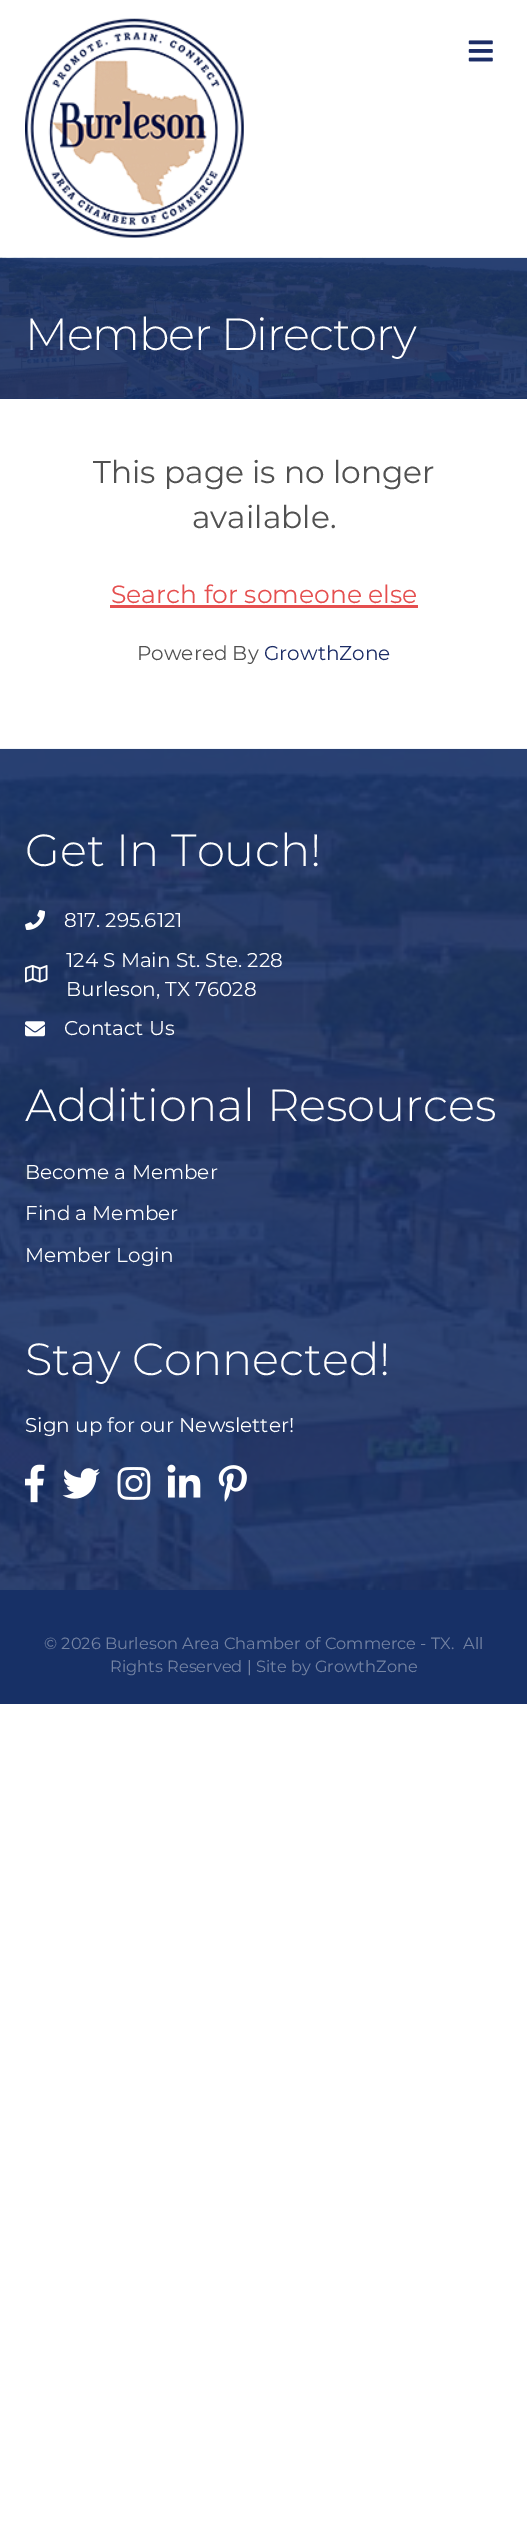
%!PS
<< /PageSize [527 2525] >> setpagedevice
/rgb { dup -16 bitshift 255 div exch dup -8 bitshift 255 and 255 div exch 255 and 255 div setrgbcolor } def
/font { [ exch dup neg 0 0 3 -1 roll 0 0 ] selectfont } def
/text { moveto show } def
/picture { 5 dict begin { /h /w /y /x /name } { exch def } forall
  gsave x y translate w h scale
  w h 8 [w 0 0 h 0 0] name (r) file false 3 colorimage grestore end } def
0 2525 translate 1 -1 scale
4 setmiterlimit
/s1 { /Montserrat-Regular 31.25 font 16#515151 rgb } def
/s2 { /Montserrat-Regular 25 font 16#E54F4F rgb } def
/s3 { /Montserrat-Regular 20 font 16#515151 rgb } def
/s4 { /Montserrat-Regular 20 font 16#1C2D66 rgb } def
/s5 { /Montserrat-Light 45 font 16#FFFFFF rgb } def
/s6 { /Montserrat-Regular 20 font 16#FFFFFF rgb } def
/s7 { /Montserrat-Regular 16.25 font 16#7483A3 rgb } def
16#FFFFFF rgb
0 0 527 2525 rectfill
(pic1.raw) 25 18 219 220 picture
(pic2.raw) 468 40 25 22 picture
(pic3.raw) 0 257 527 142 picture
/Montserrat-Light 45 font
25 350 moveto -1.25 0 (Member Directory) ashow
s1
(This page is no longer) 93 483 text
(available.) 192 528 text
s2
(Search for someone else) 111 603 text
110 605 308 3 rectfill
s3
(Powered By) 137 660 text
s4
(GrowthZone) 264 660 text
(pic4.raw) 0 748 527 842 picture
s5
(Get In Touch!) 25 866 text
(pic5.raw) 25 910 20 20 picture
s6
(817. 295.6121) 64 927 text
(pic6.raw) 25 965 23 18 picture
(124 S Main St. Ste. 228) 66 967 text
(Burleson, TX 76028) 66 996 text
(pic7.raw) 25 1021 20 16 picture
(Contact Us) 64 1035 text
s5
(Additional Resources) 25 1121 text
s6
(Become a Member) 25 1179 text
(Find a Member) 25 1220 text
(Member Login) 25 1262 text
s5
(Stay Connected!) 25 1375 text
s6
(Sign up for our Newsletter!) 25 1432 text
(pic8.raw) 25 1464 20 39 picture
(pic9.raw) 62 1468 38 31 picture
(pic10.raw) 117 1467 34 33 picture
(pic11.raw) 167 1464 34 34 picture
(pic12.raw) 218 1465 29 37 picture
16#173066 rgb
0 1590 527 114 rectfill
s7
(© 2026 Burleson Area Chamber of Commerce - TX.) 44 1649 text
(All) 463 1649 text
(Rights Reserved | Site by GrowthZone) 110 1672 text
showpage
